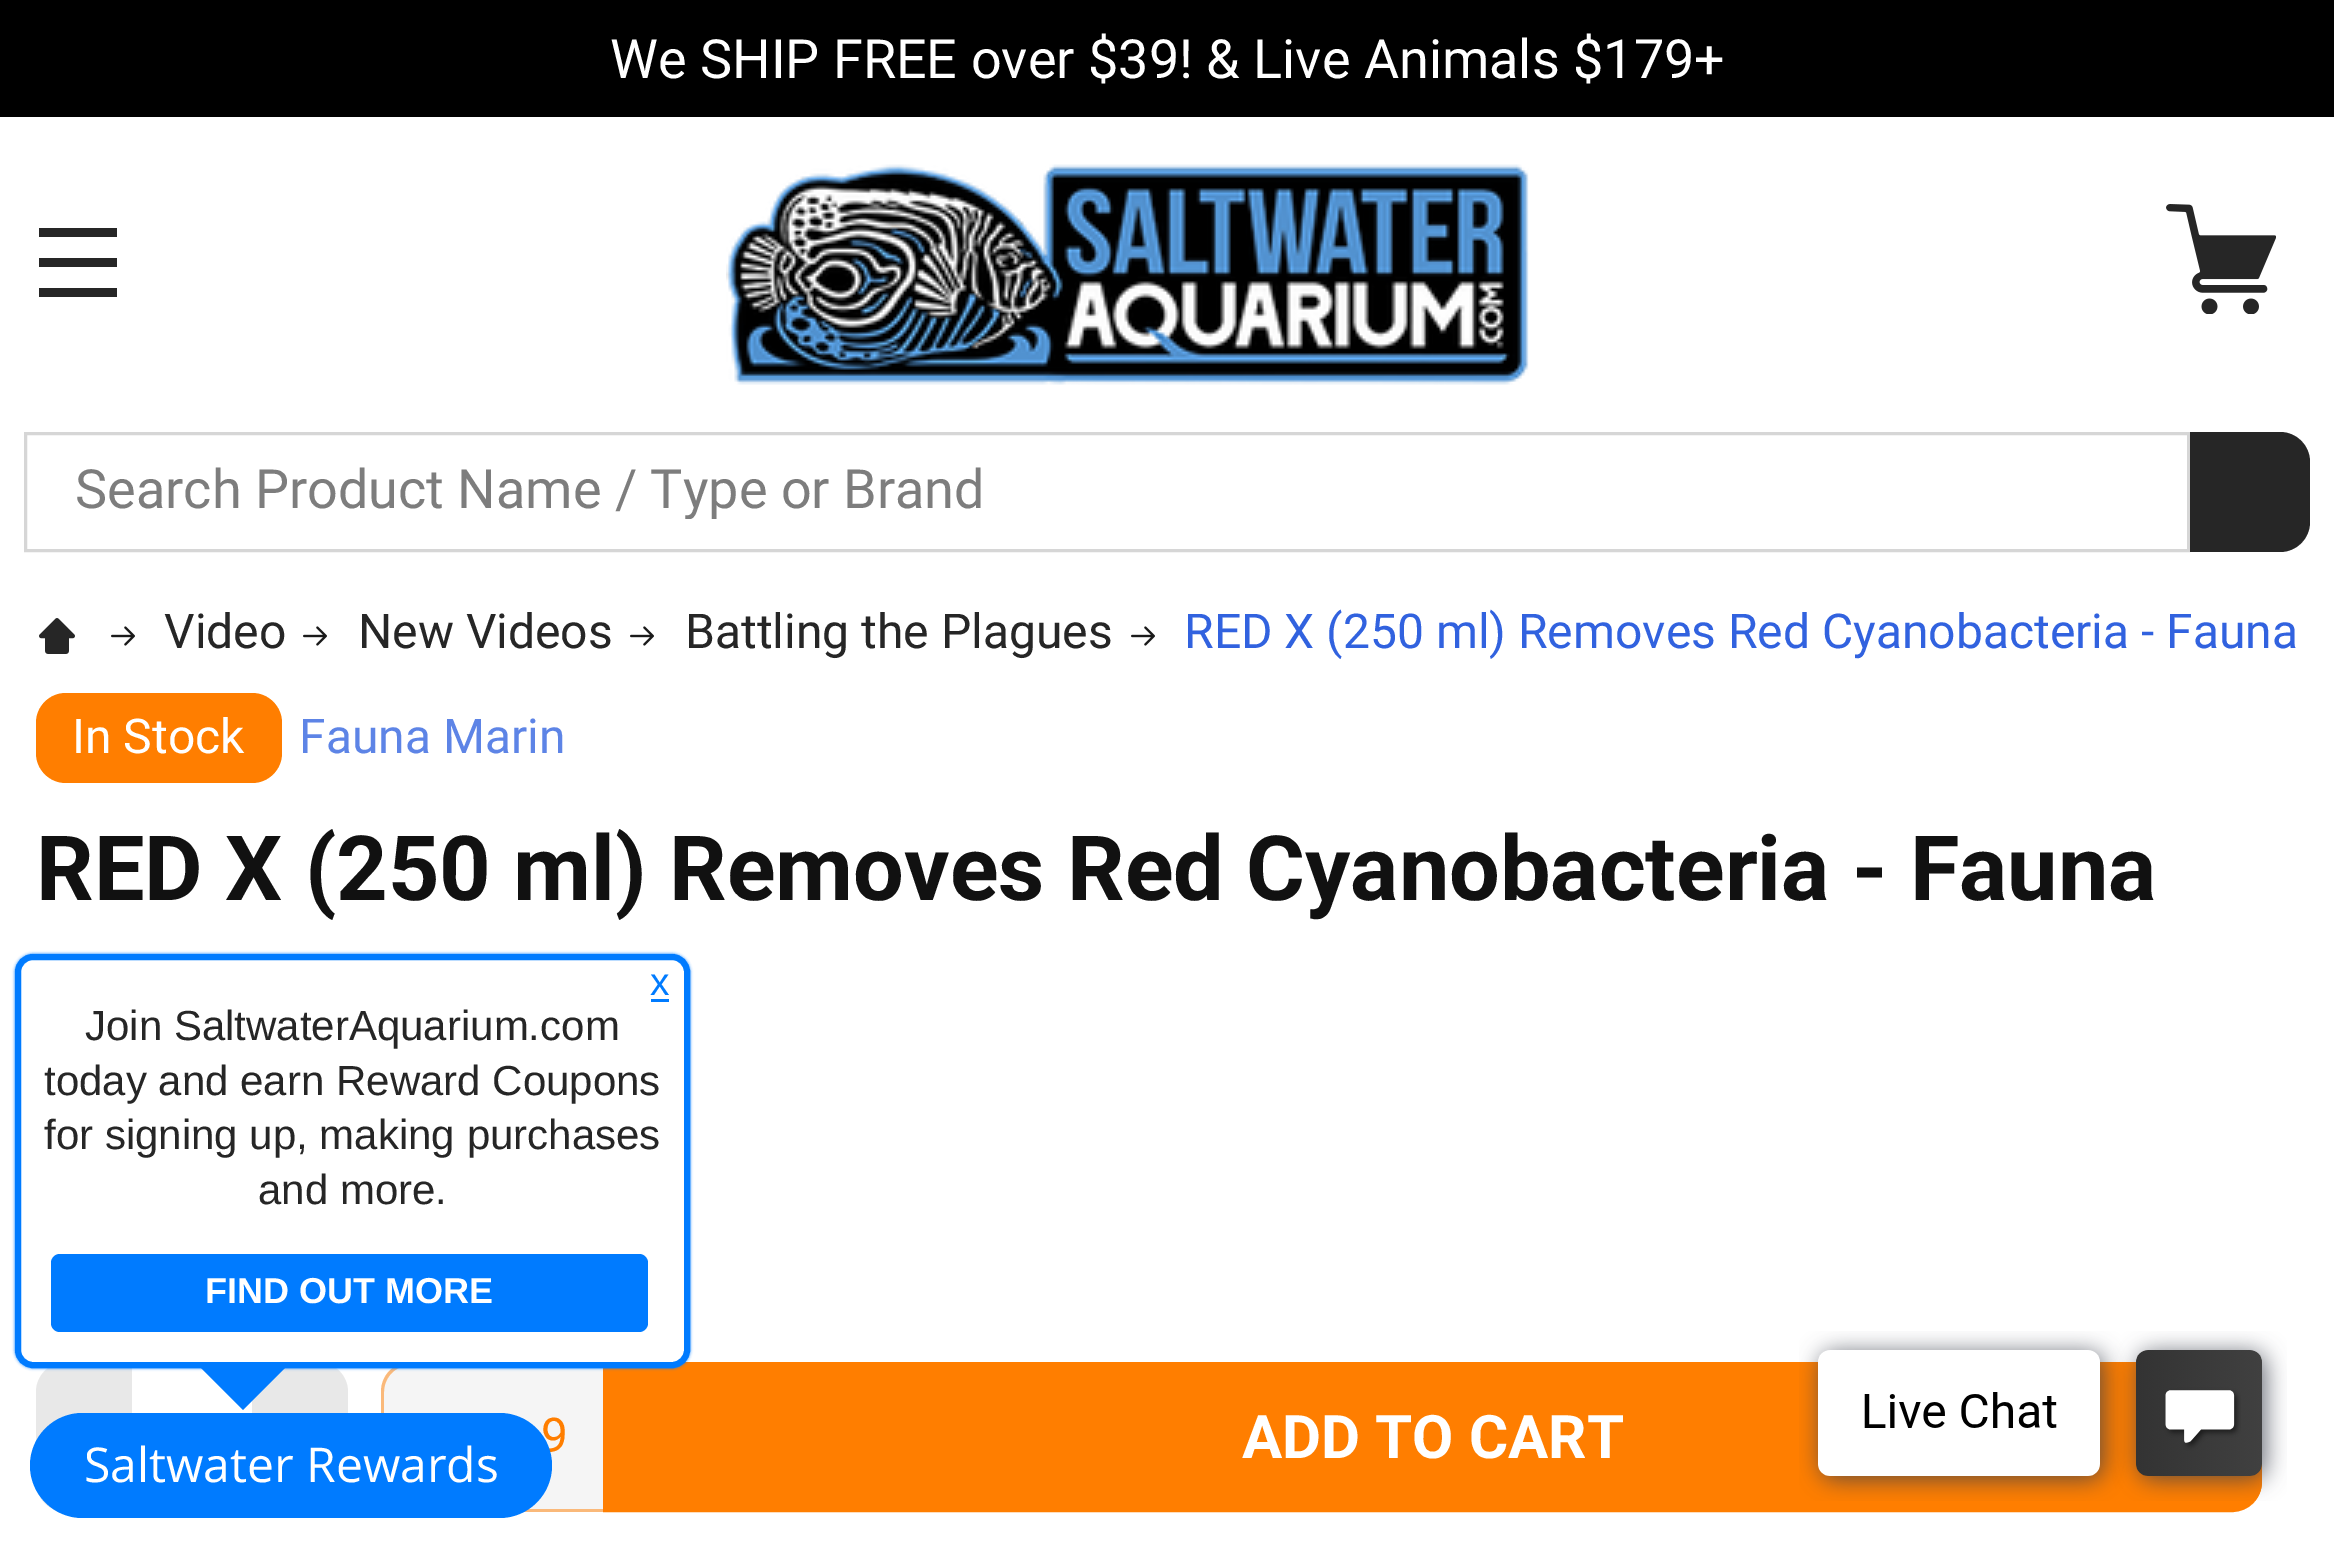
%!PS
<< /PageSize [2334 1547] /PageUsesTransparency true >> setpagedevice
/rgb { dup -16 bitshift 255 div exch dup -8 bitshift 255 and 255 div exch 255 and 255 div setrgbcolor } def
/font { [ exch dup neg 0 0 3 -1 roll 0 0 ] selectfont } def
/text { moveto show } def
/alpha { dup .setfillconstantalpha .setstrokeconstantalpha } def
/roundrect { 5 dict begin { /r /h /w /y /x } { exch def } forall
  x r add y moveto x w add y 2 copy h add r arct x w add y h add x 1 index r arct
  x y h add x y r arct x y 2 copy exch w add exch r arct closepath end } def
/shadow { 12 dict begin { /a /b /q /h /w /y /x } { exch def } forall gsave /was 0 def
  9 -2 -9 { dup b mul 4 div /e exch def 1 sub .425 mul 2.718 exch exp 1 add a .99 .min exch div /now exch def
    1 1 now sub 1 was sub div sub alpha /was now def
    w h .min e 2 mul add 0 gt { x e sub y e sub w e 2 mul add h e 2 mul add
      q e add b .6 mul add w h .min 2 div e add .min 0 .max roundrect fill } if } for grestore end } def
/picture { 5 dict begin { /h /w /y /x /name } { exch def } forall
  gsave x y translate w h scale
  w h 8 [w 0 0 h 0 0] name (r) file false 3 colorimage grestore end } def
0 .pushpdf14devicefilter
0 1547 translate 1 -1 scale
4 setmiterlimit
/s1 { /Roboto-Regular 54 font 16#FFFFFF rgb } def
/s2 { /Roboto-Regular 54 font 16#7D7D7D rgb } def
/s3 { /Roboto-Regular 48 font 16#262626 rgb } def
/s4 { /Roboto-Regular 48 font 16#3162DF rgb } def
/s5 { /Roboto-Regular 48 font 16#FFFFFF rgb } def
/s6 { /Roboto-Regular 48 font 16#5D84E6 rgb } def
/s7 { /Roboto-Bold 90 font 16#111111 rgb } def
/s8 { /Roboto-Regular 48 font 16#FF7E00 rgb } def
/s9 { /Roboto-Bold 60 font 16#FFFFFF rgb } def
/s10 { /LiberationSans-Regular 39 font 16#007BFF rgb } def
/s11 { /LiberationSans-Regular 42 font 16#262626 rgb } def
/s12 { /LiberationSans-Bold 36 font 16#FFFFFF rgb } def
/s13 { /OpenSans-Regular 48 font 16#FFFFFF rgb } def
16#FFFFFF rgb
0 0 2334 1547 rectfill
16#000000 rgb
0 0 2334 117 rectfill
s1
(We SHIP FREE over $39! & Live Animals $179+) 610 78 text
16#262626 rgb
39 258 78 9 rectfill
39 228 78 9 rectfill
39 288 78 9 rectfill
(pic1.raw) 726 164 803 221 picture
(pic2.raw) 2166 204 110 110 picture
16#D6D6D6 rgb
3 setlinewidth
25.5 433.5 2163 117 rectstroke
gsave
75 456 2064 63 rectclip
s2
(Search Product Name / Type or Brand) 75 508 text
grestore
16#262626 rgb
2190 432 moveto 2280 432 lineto 2296.5 432 2310 445.5 2310 462 curveto 2310 522 lineto 2310 538.5 2296.5 552 2280 552 curveto 2190 552 lineto closepath fill
(pic3.raw) 39 618 36 36 picture
(pic4.raw) 111 626 24 20 picture
s3
(Video) 164 648 text
(pic4.raw) 303 626 24 20 picture
(New Videos) 358 648 text
(pic4.raw) 630 626 24 20 picture
(Battling the Plagues) 685 648 text
(pic4.raw) 1131 626 24 20 picture
s4
(RED X \(250 ml\) Removes Red Cyanobacteria - Fauna) 1184 648 text
16#FF7E00 rgb
36 693 246 90 30 roundrect fill
s5
(In Stock) 72 753 text
s6
(Fauna Marin) 299 753 text
s7
(RED X \(250 ml\) Removes Red Cyanobacteria - Fauna) 36 900 text
16#E8E8E8 rgb
66 1362 moveto 132 1362 lineto 132 1512 lineto 66 1512 lineto 49.5 1512 36 1498.5 36 1482 curveto 36 1392 lineto 36 1375.5 49.5 1362 66 1362 curveto closepath fill
252 1362 moveto 318 1362 lineto 334.5 1362 348 1375.5 348 1392 curveto 348 1482 lineto 348 1498.5 334.5 1512 318 1512 curveto 252 1512 lineto closepath fill
16#F5F5F5 rgb
411 1362 moveto 603 1362 lineto 603 1512 lineto 411 1512 lineto 394.5 1512 381 1498.5 381 1482 curveto 381 1392 lineto 381 1375.5 394.5 1362 411 1362 curveto closepath fill
0.5 alpha
16#FF7E00 rgb
411 1362 moveto 603 1362 lineto 603 1512 lineto 411 1512 lineto 394 1512 381 1499 381 1482 curveto 381 1392 lineto 381 1375 394 1362 411 1362 curveto closepath 411 1365 moveto 603 1365 lineto 603 1509 lineto 411 1509 lineto 396 1509 384 1497 384 1482 curveto 384 1392 lineto 384 1377 396 1365 411 1365 curveto closepath eofill
1 alpha
s8
(9) 541 1452 text
606 1365 moveto 2232 1365 lineto 2247 1365 2259 1377 2259 1392 curveto 2259 1482 lineto 2259 1497 2247 1509 2232 1509 curveto 606 1509 lineto closepath gsave fill grestore
6 setlinewidth
stroke
s9
(ADD TO CART) 1242 1458 text
16#007BFF rgb
15 954 675 414 18 1.5 1 shadow
16#FFFFFF rgb
18 957 669 408 15 roundrect gsave fill grestore
16#007BFF rgb
stroke
s10
(x) 650 995 text
651 999 18 3 rectfill
s11
(Join SaltwaterAquarium.com) 85 1040 text
(today and earn Reward Coupons) 44 1095 text
(for signing up, making purchases) 44 1149 text
(and more.) 258 1204 text
16#007BFF rgb
51 1254 597 78 9 roundrect fill
s12
(FIND OUT MORE) 205 1303 text
16#007BFF rgb
201 1368 moveto 285 1368 lineto 243 1410 lineto closepath fill
30 1413 522 105 52.5 roundrect fill
s13
(Saltwater Rewards) 84 1482 text
(pic5.raw) 1799 1331 488 170 picture
.poppdf14devicefilter showpage
